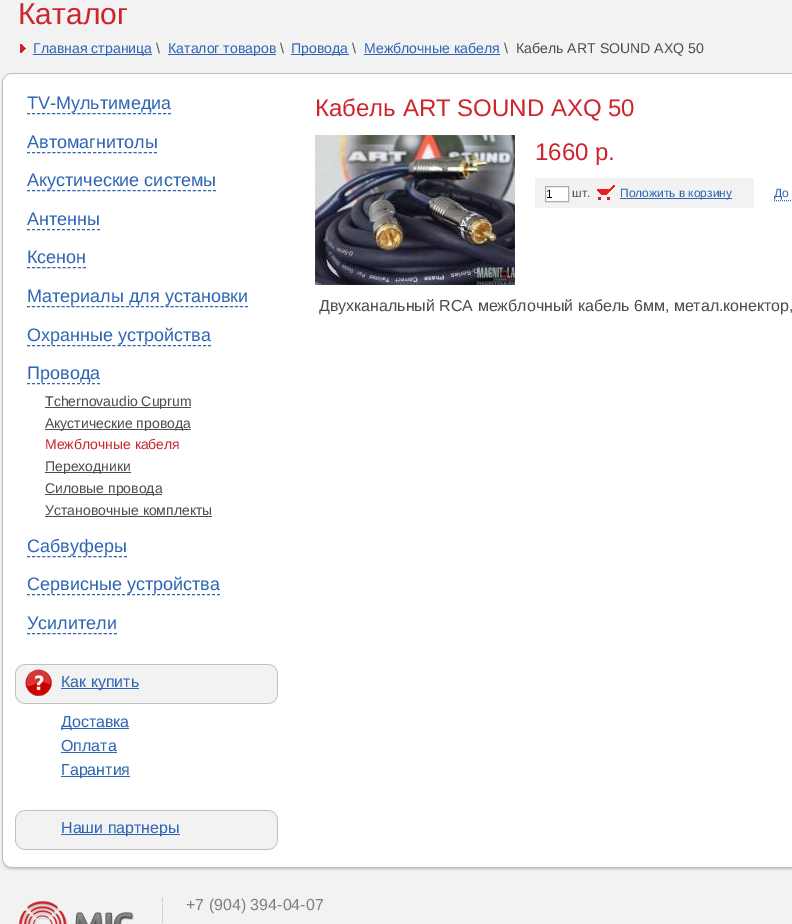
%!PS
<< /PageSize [792 924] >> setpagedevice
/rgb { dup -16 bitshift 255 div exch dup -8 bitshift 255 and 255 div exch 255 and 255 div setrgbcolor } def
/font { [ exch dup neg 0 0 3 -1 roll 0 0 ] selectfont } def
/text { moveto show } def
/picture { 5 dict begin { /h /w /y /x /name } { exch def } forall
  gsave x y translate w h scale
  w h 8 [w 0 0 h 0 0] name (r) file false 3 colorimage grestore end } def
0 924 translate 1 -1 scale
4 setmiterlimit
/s1 { /LiberationSans-Regular 30 font 16#CD242D rgb } def
/s2 { /LiberationSans-Regular 14.1 font 16#2E65B4 rgb } def
/s3 { /LiberationSans-Regular 14.1 font 16#4D4D4D rgb } def
/s4 { /LiberationSans-Regular 18 font 16#2E65B4 rgb } def
/s5 { /LiberationSans-Regular 14 font 16#4D4D4D rgb } def
/s6 { /LiberationSans-Regular 14 font 16#CD242D rgb } def
/s7 { /LiberationSans-Regular 16 font 16#2E65B4 rgb } def
/s8 { /LiberationSans-Regular 24 font 16#CD242D rgb } def
/s9 { /LiberationSans-Regular 12 font 16#000000 rgb } def
/s10 { /LiberationSans-Regular 12 font 16#4D4D4D rgb } def
/s11 { /LiberationSans-Regular 12 font 16#2E65B4 rgb } def
/s12 { /LiberationSans-Regular 16 font 16#4D4D4D rgb } def
/s13 { /LiberationSans-Regular 16 font 16#808080 rgb } def
16#F2F2F2 rgb
0 0 792 924 rectfill
(pic1.raw) 1 82 791 776 picture
(pic2.raw) 1 73 791 9 picture
s1
(Каталог) 18 24 text
(pic3.raw) 20 44 6 9 picture
16#2E65B4 rgb
33 54 119 1 rectfill
s2
(Главная страница) 33 53 text
s3
(\\) 156 53 text
16#2E65B4 rgb
168 54 108 1 rectfill
(Каталог товаров) 168 53 text
s3
(\\) 280 53 text
16#2E65B4 rgb
291 54 58 1 rectfill
(Провода) 291 53 text
s3
(\\) 352 53 text
s2
(Межблочные кабеля) 364 53 text
364 54 136 1 rectfill
s3
(\\) 504 53 text
(Кабель ART SOUND AXQ 50) 516 53 text
s4
(TV-Мультимедиа) 27 109 text
[3 2.04] 0 setdash
27 113.5 moveto 171 113.5 lineto stroke
(Автомагнитолы) 27 148 text
[3 2.08] 0 setdash
27 152.5 moveto 157 152.5 lineto stroke
(Акустические системы) 27 186 text
[3 2.03] 0 setdash
27 190.5 moveto 216 190.5 lineto stroke
(Антенны) 27 225 text
[3 2] 0 setdash
27 229.5 moveto 100 229.5 lineto stroke
(Ксенон) 27 263 text
[3 2.09] 0 setdash
27 267.5 moveto 86 267.5 lineto stroke
(Материалы для установки) 27 302 text
[3 1.95] 0 setdash
27 306.5 moveto 248 306.5 lineto stroke
(Охранные устройства) 27 341 text
[3 2.03] 0 setdash
27 345.5 moveto 211 345.5 lineto stroke
(Провода) 27 379 text
[3 2] 0 setdash
27 383.5 moveto 100 383.5 lineto stroke
16#4D4D4D rgb
45 407 146 1 rectfill
s5
(Tchernovaudio Cuprum) 45 406 text
45 429 146 1 rectfill
(Акустические провода) 45 428 text
s6
(Межблочные кабеля) 45 449 text
16#4D4D4D rgb
45 472 86 1 rectfill
(Переходники) 45 471 text
45 494 117 1 rectfill
(Силовые провода) 45 493 text
(Установочные комплекты) 45 515 text
45 516 167 1 rectfill
s4
(Сабвуферы) 27 552 text
[3 2.11] 0 setdash
27 556.5 moveto 127 556.5 lineto stroke
(Сервисные устройства) 27 590 text
[3 2] 0 setdash
27 594.5 moveto 220 594.5 lineto stroke
(Усилители) 27 629 text
[3 2.12] 0 setdash
27 633.5 moveto 117 633.5 lineto stroke
(pic4.raw) 15 664 263 40 picture
(pic5.raw) 25 669 27 27 picture
61 688 78 1 rectfill
s7
(Как купить) 61 687 text
61 728 68 1 rectfill
(Доставка) 61 727 text
(Оплата) 61 751 text
61 752 56 1 rectfill
61 776 69 1 rectfill
(Гарантия) 61 775 text
(pic4.raw) 15 810 263 40 picture
61 834 119 1 rectfill
(Наши партнеры) 61 833 text
s8
(Кабель ART SOUND AXQ 50) 315 116 text
(pic6.raw) 315 135 200 150 picture
(1660 р.) 535 160 text
16#F2F2F2 rgb
535 178 219 30 rectfill
16#FFFFFF rgb
545.5 186.5 moveto 568.5 186.5 lineto 568.5 201.5 lineto 545.5 201.5 lineto closepath gsave fill grestore
16#ABADB3 rgb
[] 0 setdash
stroke
s9
(1) 546 198 text
s10
(шт.) 572 197 text
(pic7.raw) 597 185 18 15 picture
16#2E65B4 rgb
620 198 112 1 rectfill
(Положить в корзину) 620 197 text
(До) 774 197 text
[1 1] 0 setdash
774 200.5 moveto 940 200.5 lineto stroke
s12
(Двухканальный RCA межблочный кабель 6мм, метал.конектор,) 319 311 text
(pic8.raw) 1 858 791 13 picture
(pic9.raw) 162 898 1 25 picture
(pic10.raw) 19 901 115 23 picture
s13
(+7 \(904\) 394-04-07) 186 910 text
showpage
